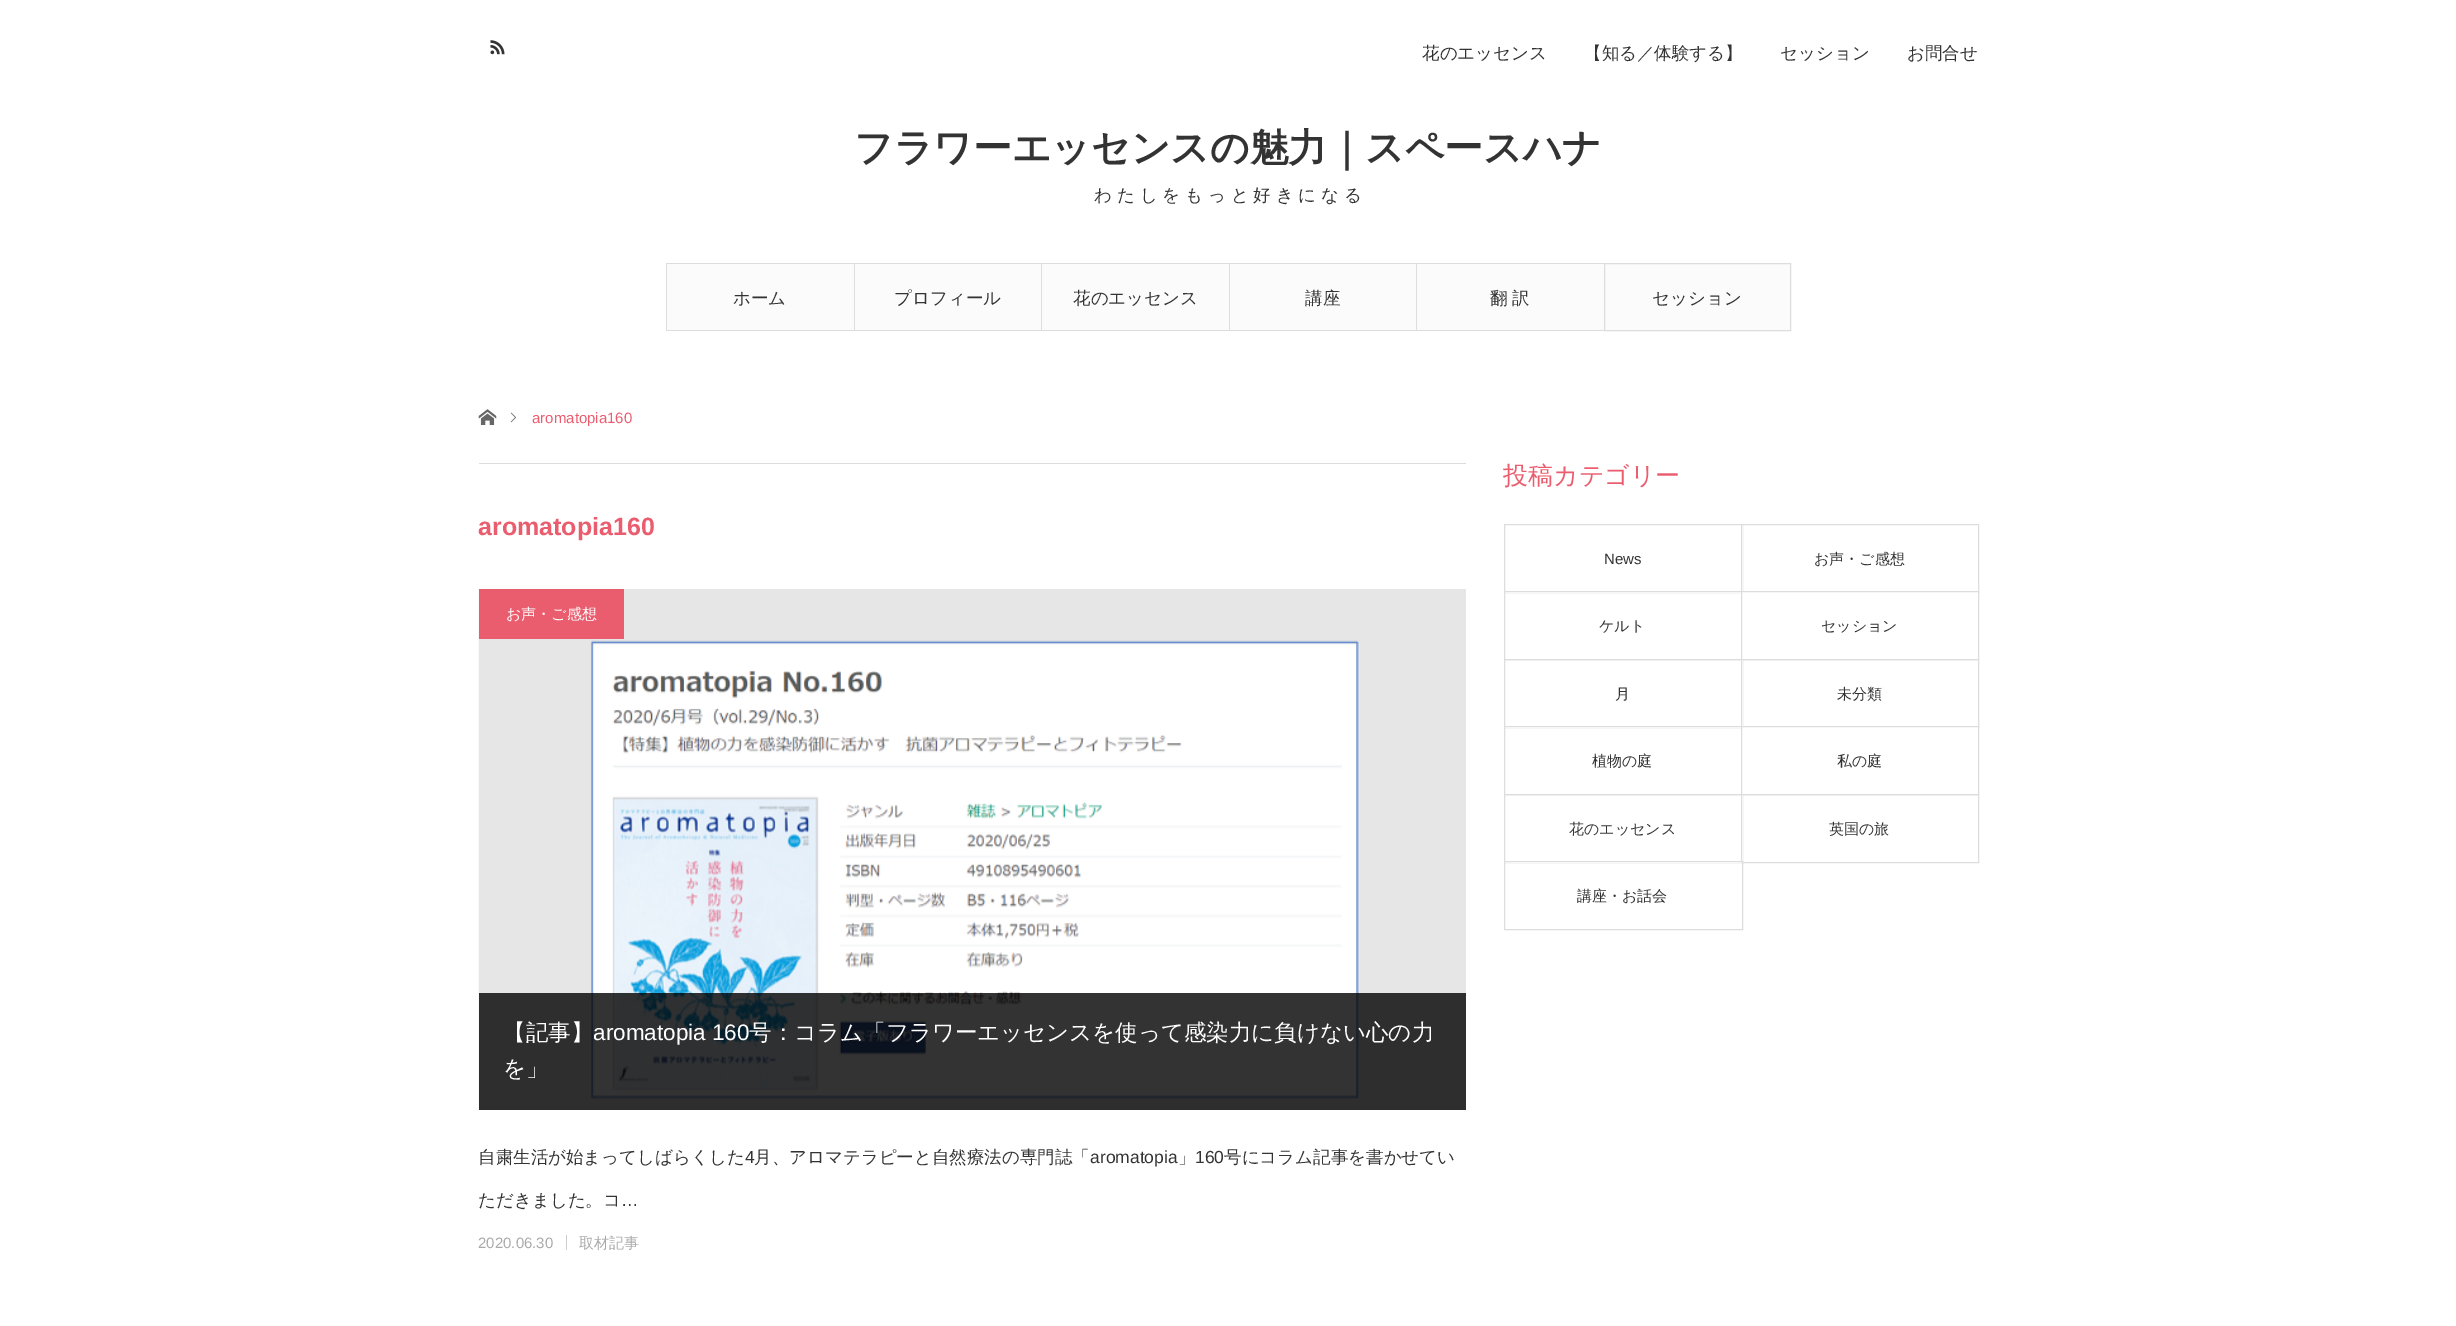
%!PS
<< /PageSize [2456 1326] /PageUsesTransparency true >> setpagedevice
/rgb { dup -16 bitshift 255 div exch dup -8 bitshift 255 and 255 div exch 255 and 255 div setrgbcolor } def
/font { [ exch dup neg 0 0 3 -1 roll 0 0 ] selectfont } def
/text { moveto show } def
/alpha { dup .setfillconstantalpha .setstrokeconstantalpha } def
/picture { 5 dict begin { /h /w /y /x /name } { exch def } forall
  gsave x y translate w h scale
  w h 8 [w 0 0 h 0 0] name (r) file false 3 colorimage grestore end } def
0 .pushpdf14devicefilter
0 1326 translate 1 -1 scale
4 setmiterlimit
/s1 { /WenQuanYiZenHei-Medium 17.5 font 16#333333 rgb } def
/s2 { /WenQuanYiZenHei-Bold 38.75 font 16#333333 rgb } def
/s3 { /LiberationSans-Regular 15 font 16#EA5D6E rgb } def
/s4 { /LiberationSans-Bold 25 font 16#EA5D6E rgb } def
/s5 { /WenQuanYiZenHei-Medium 15 font 16#FFFFFF rgb } def
/s6 { /WenQuanYiZenHei-Medium 22.5 font 16#FFFFFF rgb } def
/s7 { /LiberationSans-Regular 22.5 font 16#FFFFFF rgb } def
/s8 { /LiberationSans-Regular 17.5 font 16#333333 rgb } def
/s9 { /LiberationSans-Regular 15 font 16#AAAAAA rgb } def
/s10 { /WenQuanYiZenHei-Medium 15 font 16#AAAAAA rgb } def
/s11 { /WenQuanYiZenHei-Medium 25 font 16#EA5D6E rgb } def
/s12 { /LiberationSans-Regular 15 font 16#333333 rgb } def
/s13 { /WenQuanYiZenHei-Medium 15 font 16#333333 rgb } def
16#FFFFFF rgb
0 0 2456 1326 rectfill
(pic1.raw) 490 40 15 15 picture
s1
(花のエッセンス) 1422 59 text
(【知る／体験する】) 1584 59 text
(セッション) 1780 59 text
(お問合せ) 1907 59 text
s2
(フラワーエッセンスの魅力｜スペースハナ) 854 161 text
/WenQuanYiZenHei-Medium 17.5 font
1094 201 moveto -0.4 0 32 (わ た し を も っ と 好 き に な る) widthshow
16#FBFBFB rgb
667 264 187 66 rectfill
16#DDDDDD rgb
666 263 938 1 rectfill
666 330 938 1 rectfill
666 263 1 68 rectfill
s1
(ホーム) 733 304 text
16#FBFBFB rgb
855 264 186 66 rectfill
16#DDDDDD rgb
854 263 1 68 rectfill
s1
(プロフィール) 894 304 text
16#FBFBFB rgb
1042 264 187 66 rectfill
16#DDDDDD rgb
1041 263 1 68 rectfill
s1
(花のエッセンス) 1073 304 text
16#FBFBFB rgb
1230 264 186 66 rectfill
16#DDDDDD rgb
1229 263 1 68 rectfill
s1
(講座) 1305 304 text
16#FBFBFB rgb
1417 264 187 66 rectfill
16#DDDDDD rgb
1416 263 1 68 rectfill
16#333333 rgb
1490 304 moveto -0.4 0 32 (翻 訳) widthshow
16#FBFBFB rgb
1604.5 263.5 moveto 1790.5 263.5 lineto 1790.5 330.5 lineto 1604.5 330.5 lineto closepath gsave fill grestore
16#DDDDDD rgb
stroke
s1
(セッション) 1652 304 text
(pic2.raw) 478 409 19 16 picture
(pic3.raw) 510 412 6 11 picture
s3
(aromatopia160) 532 423 text
16#DDDDDD rgb
479 463 987 1 rectfill
s4
(aromatopia160) 478 535 text
(pic4.raw) 478 589 988 521 picture
479 589 145 50 rectfill
s5
(お声・ご感想) 506 619 text
0.8 alpha
16#000000 rgb
479 993 987 117 rectfill
1 alpha
s6
(【記事】) 503 1040 text
s7
(aromatopia 160) 593 1040 text
s6
(号：コラム「フラワーエッセンスを使って感染力に負けない心の力) 749 1040 text
(を」) 503 1076 text
s1
(自粛生活が始まってしばらくした) 478 1163 text
s8
(4) 745 1163 text
s1
(月、アロマテラピーと自然療法の専門誌「) 754 1163 text
s8
(aromatopia) 1090 1163 text
s1
(」) 1178 1163 text
s8
(160) 1195 1163 text
s1
(号にコラム記事を書かせてい) 1224 1163 text
(ただきました。コ) 478 1206 text
s8
(…) 621 1206 text
16#CCCCCC rgb
566 1235 1 15 rectfill
s9
(2020.06.30) 478 1248 text
s10
(取材記事) 579 1248 text
s11
(投稿カテゴリー) 1503 484 text
16#DDDDDD rgb
1504.5 524.5 238 68 rectstroke
s12
(News) 1604 564 text
16#FFFFFF rgb
1742 525 1 66 rectfill
16#DDDDDD rgb
1741.5 524.5 237 68 rectstroke
s13
(お声・ご感想) 1814 564 text
16#FFFFFF rgb
1505 592 236 1 rectfill
16#DDDDDD rgb
1504.5 591.5 238 68 rectstroke
s13
(ケルト) 1599 631 text
16#FFFFFF rgb
1741.5 591.5 moveto 1978.5 591.5 lineto 1978.5 659.5 lineto 1741.5 659.5 lineto closepath gsave fill grestore
16#DDDDDD rgb
stroke
s13
(セッション) 1821 631 text
16#DDDDDD rgb
1504.5 659.5 238 68 rectstroke
s13
(月) 1615 699 text
16#FFFFFF rgb
1742 660 1 66 rectfill
16#DDDDDD rgb
1741.5 659.5 237 68 rectstroke
s13
(未分類) 1837 699 text
16#FFFFFF rgb
1505 727 236 1 rectfill
16#DDDDDD rgb
1504.5 726.5 238 68 rectstroke
s13
(植物の庭) 1592 766 text
16#FFFFFF rgb
1741.5 726.5 moveto 1978.5 726.5 lineto 1978.5 794.5 lineto 1741.5 794.5 lineto closepath gsave fill grestore
16#DDDDDD rgb
stroke
s13
(私の庭) 1837 766 text
16#DDDDDD rgb
1504.5 794.5 238 68 rectstroke
s13
(花のエッセンス) 1569 834 text
16#FFFFFF rgb
1742 795 1 67 rectfill
16#DDDDDD rgb
1741.5 794.5 237 68 rectstroke
s13
(英国の旅) 1829 834 text
16#FFFFFF rgb
1505 862 237 1 rectfill
16#DDDDDD rgb
1504.5 861.5 238 68 rectstroke
s13
(講座・お話会) 1577 901 text
.poppdf14devicefilter showpage
